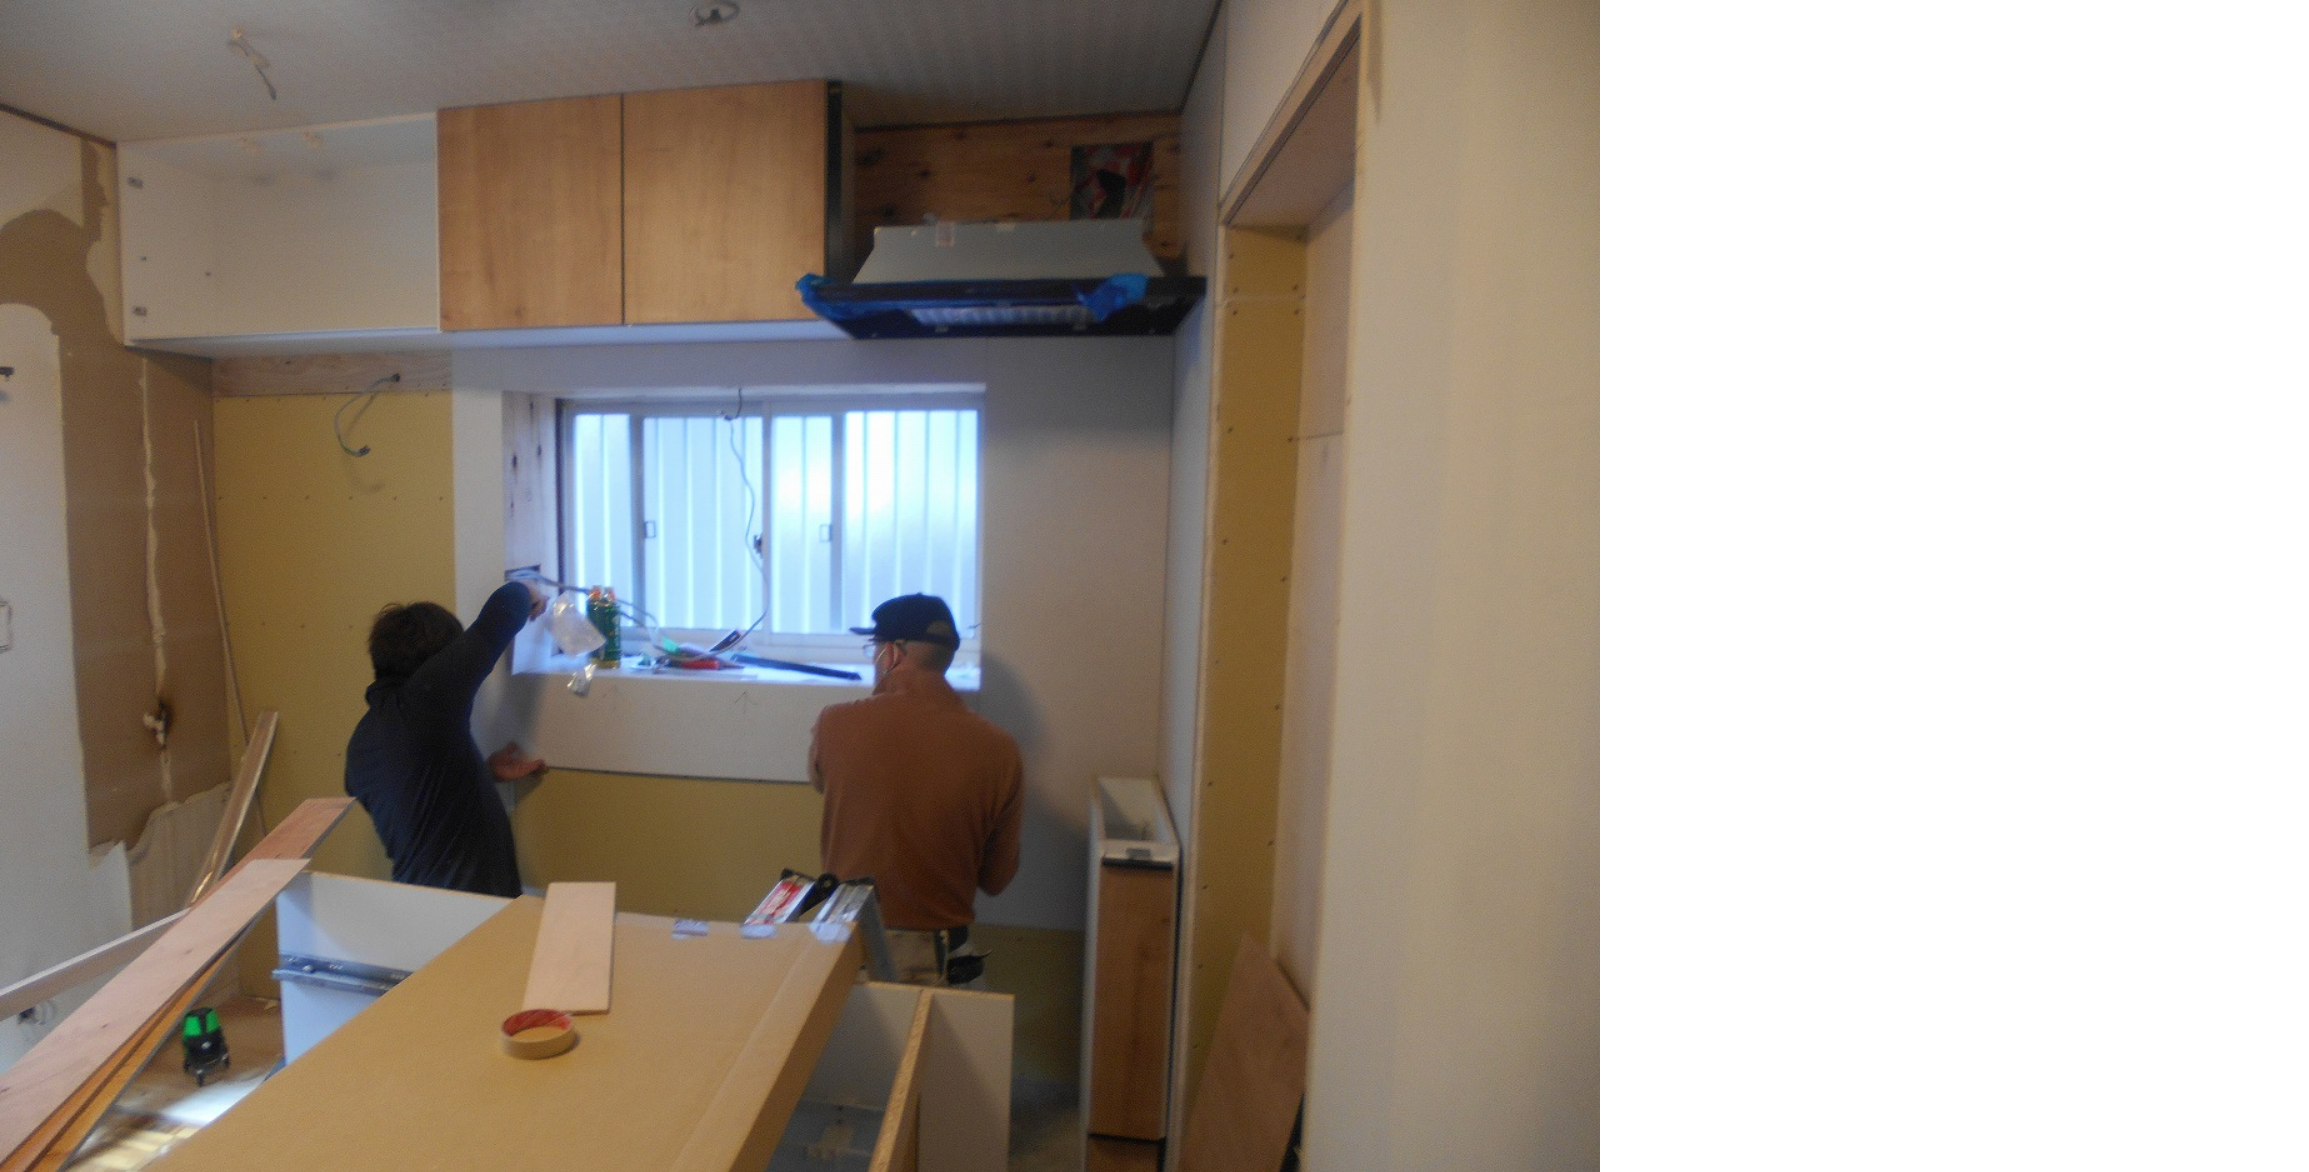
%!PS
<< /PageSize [2309 1172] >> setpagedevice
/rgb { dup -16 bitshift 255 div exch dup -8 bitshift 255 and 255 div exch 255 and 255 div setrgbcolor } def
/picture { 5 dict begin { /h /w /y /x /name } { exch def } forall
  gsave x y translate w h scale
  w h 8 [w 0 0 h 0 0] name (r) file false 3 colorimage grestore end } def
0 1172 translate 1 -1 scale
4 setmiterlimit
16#FFFFFF rgb
0 0 2309 1172 rectfill
(pic1.raw) 0 0 1600 1172 picture
showpage
